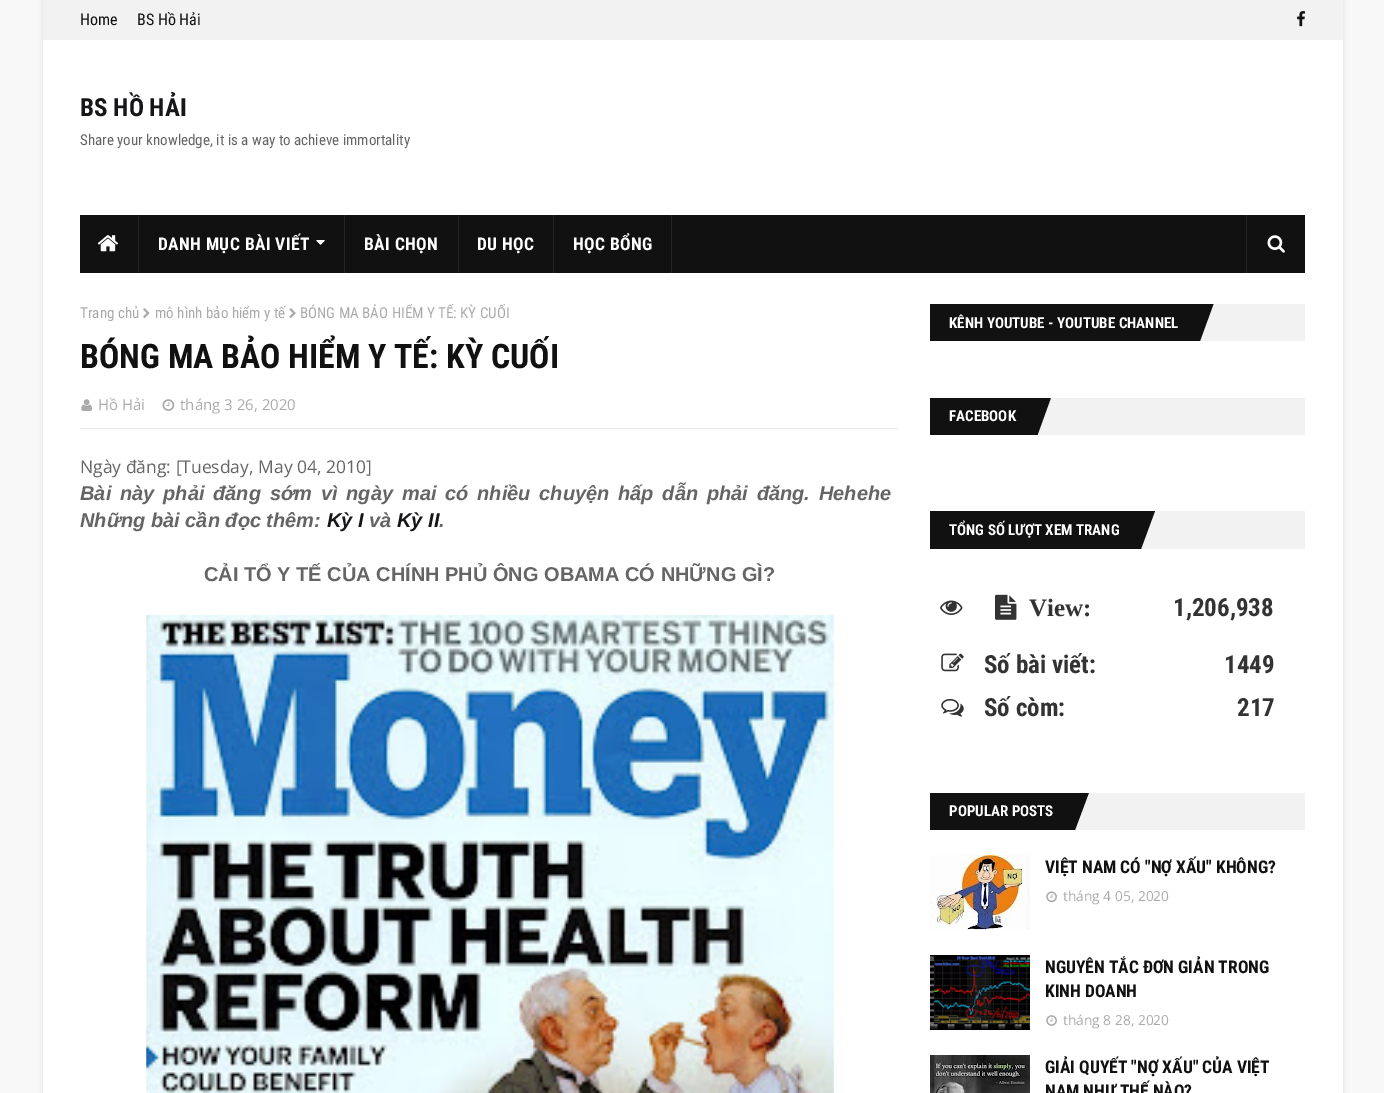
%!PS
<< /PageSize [1384 1093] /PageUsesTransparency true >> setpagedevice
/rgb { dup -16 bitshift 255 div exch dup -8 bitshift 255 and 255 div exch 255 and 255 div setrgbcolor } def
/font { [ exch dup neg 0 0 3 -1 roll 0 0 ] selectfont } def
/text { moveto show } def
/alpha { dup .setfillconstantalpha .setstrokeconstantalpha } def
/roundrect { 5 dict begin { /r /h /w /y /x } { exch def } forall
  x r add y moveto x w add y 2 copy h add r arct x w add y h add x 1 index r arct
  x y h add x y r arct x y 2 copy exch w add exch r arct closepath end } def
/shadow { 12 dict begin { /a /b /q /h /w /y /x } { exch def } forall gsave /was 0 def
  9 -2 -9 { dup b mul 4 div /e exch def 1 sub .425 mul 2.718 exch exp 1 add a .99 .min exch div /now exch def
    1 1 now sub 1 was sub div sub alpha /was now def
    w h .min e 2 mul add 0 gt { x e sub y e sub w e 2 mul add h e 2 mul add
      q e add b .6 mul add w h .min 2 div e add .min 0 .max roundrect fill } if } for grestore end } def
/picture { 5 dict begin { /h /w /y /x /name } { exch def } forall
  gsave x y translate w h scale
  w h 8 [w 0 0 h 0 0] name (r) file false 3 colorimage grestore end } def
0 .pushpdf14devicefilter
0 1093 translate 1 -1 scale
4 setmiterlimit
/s1 { /RobotoCondensed-Regular 16 font 16#111111 rgb } def
/s2 { /RobotoCondensed-Bold 25 font 16#161619 rgb } def
/s3 { /RobotoCondensed-Regular 15 font 16#656565 rgb } def
/s4 { /RobotoCondensed-Regular 15 font 16#AAAAAA rgb } def
/s5 { /RobotoCondensed-Bold 33.75 font 16#111111 rgb } def
/s6 { /OpenSans-Regular 15 font 16#AAAAAA rgb } def
/s7 { /OpenSans-Regular 17.5 font 16#656565 rgb } def
/s8 { /LiberationSans-BoldItalic 20 font 16#656565 rgb } def
/s9 { /LiberationSans-BoldItalic 20 font 16#161619 rgb } def
/s10 { /LiberationSans-Bold 20 font 16#656565 rgb } def
/s11 { /RobotoCondensed-Bold 15 font 16#FFFFFF rgb } def
/s12 { /LiberationSerif-Bold 25 font 16#333333 rgb } def
/s13 { /RobotoCondensed-Bold 25 font 16#333333 rgb } def
/s14 { /RobotoCondensed-Bold 17.5 font 16#111111 rgb } def
/s15 { /OpenSans-Regular 13.75 font 16#AAAAAA rgb } def
16#F8F8F8 rgb
0 0 1384 1093 rectfill
16#000000 rgb
43 0 1300 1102 0 3 0.1 shadow
16#FFFFFF rgb
43 40 1300 1053 rectfill
16#F2F2F2 rgb
43 0 1300 40 rectfill
s1
(Home) 80 25 text
(BS Hồ Hải) 137 25 text
(pic1.raw) 1297 11 8 16 picture
s2
(BS HỒ HẢI) 80 116 text
s3
(Share your knowledge, it is a way to achieve immortality) 80 145 text
16#111111 rgb
80 215 1225 58 rectfill
16#242424 rgb
138 215 1 58 rectfill
(pic2.raw) 97 235 21 17 picture
344 215 1 58 rectfill
/RobotoCondensed-Bold 17.5 font
16#FFFFFF rgb
158 250 moveto 0.4 0 (DANH MỤC BÀI VIẾT) ashow
(pic3.raw) 316 240 9 5 picture
16#242424 rgb
458 215 1 58 rectfill
16#FFFFFF rgb
364 250 moveto 0.4 0 (BÀI CHỌN) ashow
16#242424 rgb
553 215 1 58 rectfill
16#FFFFFF rgb
477 250 moveto 0.4 0 (DU HỌC) ashow
16#242424 rgb
671 215 1 58 rectfill
16#FFFFFF rgb
573 250 moveto 0.4 0 (HỌC BỔNG) ashow
16#242424 rgb
1246 215 1 58 rectfill
(pic4.raw) 1267 235 18 18 picture
s4
(Trang chủ) 80 318 text
(pic5.raw) 143 308 7 10 picture
(mô hình bảo hiểm y tế) 155 318 text
(pic6.raw) 289 308 7 10 picture
gsave
80 304 819 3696 rectclip
(BÓNG MA BẢO HIỂM Y TẾ: KỲ CUỐI) 300 318 text
grestore
s5
(BÓNG MA BẢO HIỂM Y TẾ: KỲ CUỐI) 80 368 text
16#EBEBEB rgb
80 428 819 1 rectfill
(pic7.raw) 81 399 11 12 picture
s6
(Hồ Hải) 98 410 text
(pic8.raw) 162 399 13 12 picture
(tháng 3 26, 2020) 180 410 text
s7
(Ngày đăng: [Tuesday, May 04, 2010]) 80 473 text
/LiberationSans-BoldItalic 20 font
80 500 moveto 3.25 0 32 (Bài này phải đăng sớm vì ngày mai có nhiều chuyện hấp dẫn phải đăng. Hehehe) widthshow
(Những bài cần đọc thêm:) 80 527 text
s9
(Kỳ I) 327 527 text
s8
(và) 369 527 text
s9
(Kỳ II) 397 527 text
s8
(.) 439 527 text
s10
(CẢI TỔ Y TẾ CỦA CHÍNH PHỦ ÔNG OBAMA CÓ NHỮNG GÌ?) 204 581 text
(pic9.raw) 146 615 688 478 picture
16#F2F2F2 rgb
1200 304 105 37 rectfill
16#111111 rgb
930 304 265 37 rectfill
s11
(KÊNH YOUTUBE - YOUTUBE CHANNEL) 949 328 text
16#111111 rgb
1195 304 moveto 1213.5 304 lineto 1200 341 lineto 1181.5 341 lineto closepath fill
16#F2F2F2 rgb
1037 398 268 37 rectfill
16#111111 rgb
930 398 103 37 rectfill
s11
(FACEBOOK) 949 421 text
gsave
930 398 375 82 rectclip
16#111111 rgb
1032.5 397.5 moveto 1051 397.5 lineto 1037.5 435 lineto 1019 435 lineto closepath fill
grestore
16#F2F2F2 rgb
1141 511 164 38 rectfill
16#111111 rgb
930 511 206 38 rectfill
s11
(TỔNG SỐ LƯỢT XEM TRANG) 949 535 text
16#111111 rgb
1136 511 moveto 1155 511 lineto 1141 549 lineto 1122.5 549 lineto closepath fill
(pic10.raw) 940 600 23 15 picture
(pic11.raw) 995 594 22 26 picture
s12
(View:) 1029 616 text
s13
(1,206,938) 1173 616 text
(pic12.raw) 941 653 23 19 picture
(Số bài viết:) 984 673 text
(1449) 1224 673 text
(pic13.raw) 941 698 23 19 picture
(Số còm:) 984 716 text
(217) 1237 716 text
16#F2F2F2 rgb
1075 793 230 37 rectfill
16#111111 rgb
930 793 140 37 rectfill
s11
(POPULAR POSTS) 949 816 text
gsave
930 793 375 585 rectclip
16#111111 rgb
1070 792.5 moveto 1089 792.5 lineto 1075 830 lineto 1056.5 830 lineto closepath fill
grestore
16#F9F9F9 rgb
1027 855 3 75 rectfill
(pic14.raw) 930 855 97 75 picture
s14
(VIỆT NAM CÓ "NỢ XẤU" KHÔNG?) 1045 873 text
(pic15.raw) 1046 891 11 12 picture
s15
(tháng 4 05, 2020) 1063 901 text
(pic16.raw) 930 955 100 75 picture
s14
(NGUYÊN TẮC ĐƠN GIẢN TRONG) 1045 973 text
(KINH DOANH) 1045 997 text
(pic17.raw) 1046 1015 11 11 picture
s15
(tháng 8 28, 2020) 1063 1025 text
(pic18.raw) 930 1055 100 38 picture
s14
(GIẢI QUYẾT "NỢ XẤU" CỦA VIỆT) 1045 1073 text
(NAM NHƯ THẾ NÀO?) 1045 1097 text
.poppdf14devicefilter showpage
